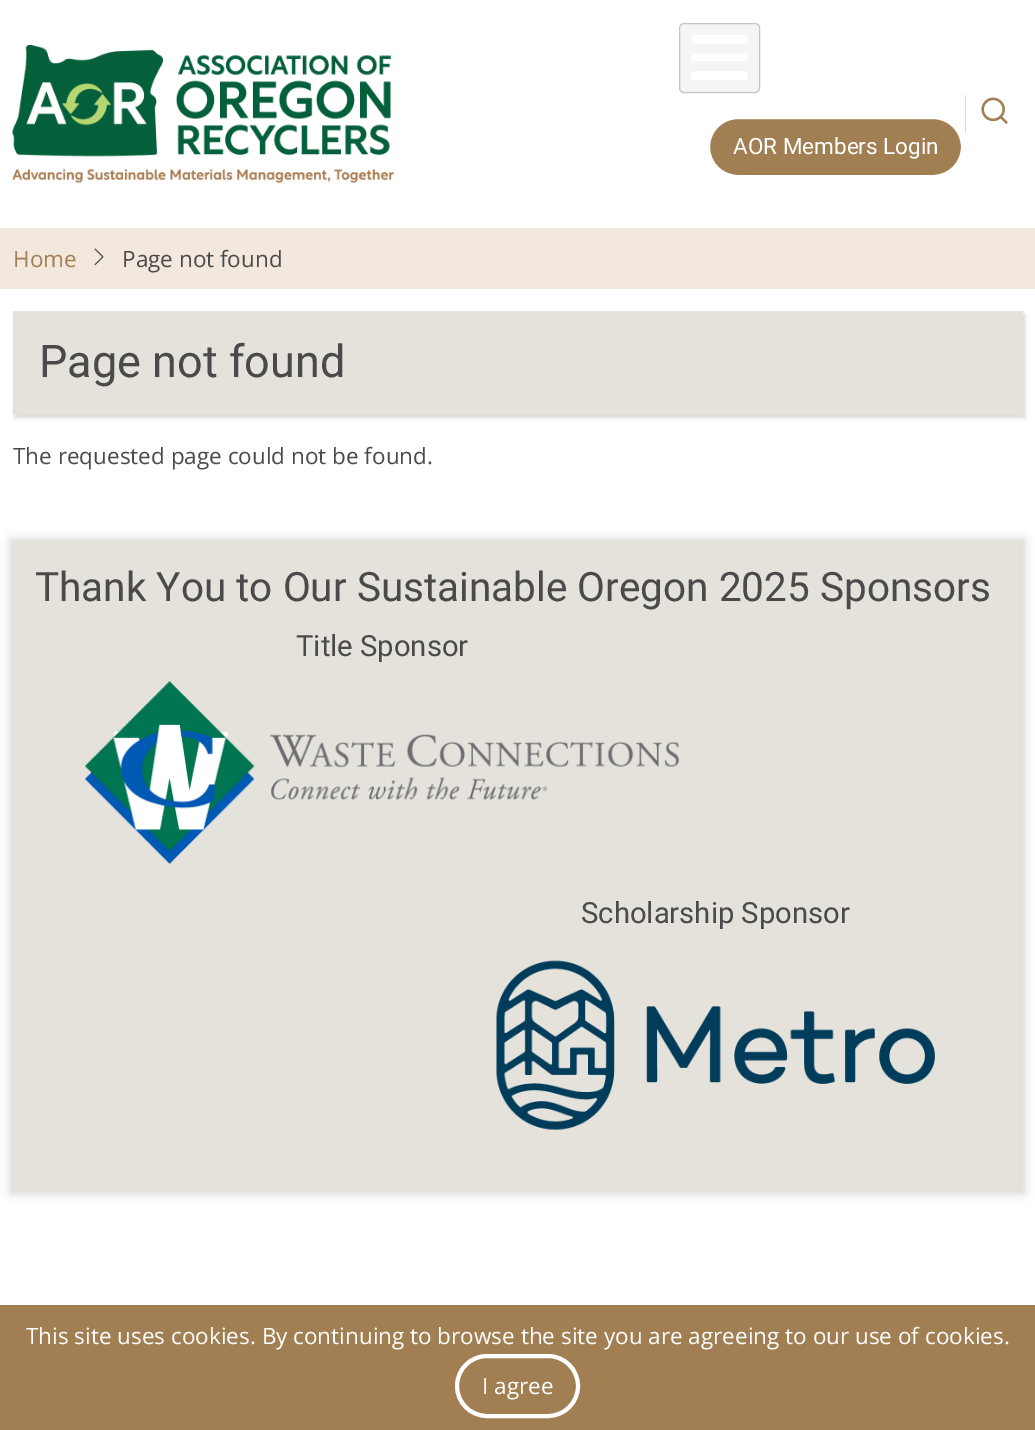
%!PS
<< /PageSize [1035 1430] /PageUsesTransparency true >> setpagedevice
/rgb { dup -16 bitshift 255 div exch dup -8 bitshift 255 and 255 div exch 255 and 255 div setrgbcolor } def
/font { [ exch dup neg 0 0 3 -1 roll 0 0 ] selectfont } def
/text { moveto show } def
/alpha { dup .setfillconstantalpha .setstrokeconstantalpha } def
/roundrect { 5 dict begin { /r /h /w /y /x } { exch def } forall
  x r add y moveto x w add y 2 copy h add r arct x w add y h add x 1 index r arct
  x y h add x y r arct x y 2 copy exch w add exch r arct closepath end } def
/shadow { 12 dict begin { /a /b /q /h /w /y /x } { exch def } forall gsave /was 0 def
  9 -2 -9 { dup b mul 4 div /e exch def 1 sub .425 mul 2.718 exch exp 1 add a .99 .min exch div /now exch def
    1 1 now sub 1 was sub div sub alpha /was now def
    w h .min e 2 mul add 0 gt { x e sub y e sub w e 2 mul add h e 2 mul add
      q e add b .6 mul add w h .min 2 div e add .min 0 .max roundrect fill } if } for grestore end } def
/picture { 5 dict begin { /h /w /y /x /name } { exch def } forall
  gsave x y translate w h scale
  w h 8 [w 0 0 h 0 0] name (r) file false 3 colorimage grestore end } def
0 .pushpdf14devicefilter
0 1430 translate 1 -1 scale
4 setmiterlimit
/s1 { /Roboto-Regular 22.5 font 16#FFFFFF rgb } def
/s2 { /OpenSans-Regular 22.5 font 16#A17F52 rgb } def
/s3 { /OpenSans-Regular 22.5 font 16#4A4A4A rgb } def
/s4 { /Roboto-Regular 45 font 16#4A4A4A rgb } def
/s5 { /Roboto-Regular 40.5 font 16#4A4A4A rgb } def
/s6 { /Roboto-Regular 29.25 font 16#4A4A4A rgb } def
/s7 { /OpenSans-Regular 22.5 font 16#FFFFFF rgb } def
16#FFFFFF rgb
0 0 1035 1430 rectfill
(pic1.raw) 12 45 382 138 picture
16#DBDBD3 rgb
965 95 1 38 rectfill
(pic2.raw) 981 97 27 27 picture
16#F5F5F5 rgb
679 23 81 70 5 roundrect fill
0.2 alpha
16#000000 rgb
679.5 23.5 80 69 4.5 roundrect stroke
1 alpha
16#FFFFFF rgb
691 35 57 9 4 roundrect fill
691 54 57 7 3.5 roundrect fill
691 71 57 9 4 roundrect fill
16#A17F52 rgb
708 117 255 60 30 roundrect gsave fill grestore
16#FFFFFF rgb
4 setlinewidth
stroke
s1
(AOR Members Login) 733 154 text
16#F2E8DD rgb
0 228 1035 61 rectfill
s2
(Home) 13 267 text
(pic3.raw) 94 248 10 18 picture
s3
(Page not found) 122 267 text
16#000000 rgb
15 314 1010 104 0 2 0.15 shadow
16#E5E2DC rgb
13 311 1010 104 rectfill
s4
(Page not found) 39 377 text
s3
(The requested page could not be found.) 13 464 text
16#CCCCCC rgb
11 540 1013 653 0 5 1 shadow
16#E5E2DC rgb
13 541 1010 650 rectfill
s5
(Thank You to Our Sustainable Oregon 2025 Sponsors) 35 601 text
s6
(Title Sponsor) 296 656 text
(pic4.raw) 85 681 594 183 picture
(Scholarship Sponsor) 581 923 text
(pic5.raw) 496 960 439 170 picture
16#A17F52 rgb
0 1305 1035 125 rectfill
s7
(This site uses cookies. By continuing to browse the site you are agreeing to our use of cookies.) 26 1344 text
457 1356 121 60 30 roundrect stroke
(I agree) 482 1394 text
.poppdf14devicefilter showpage
